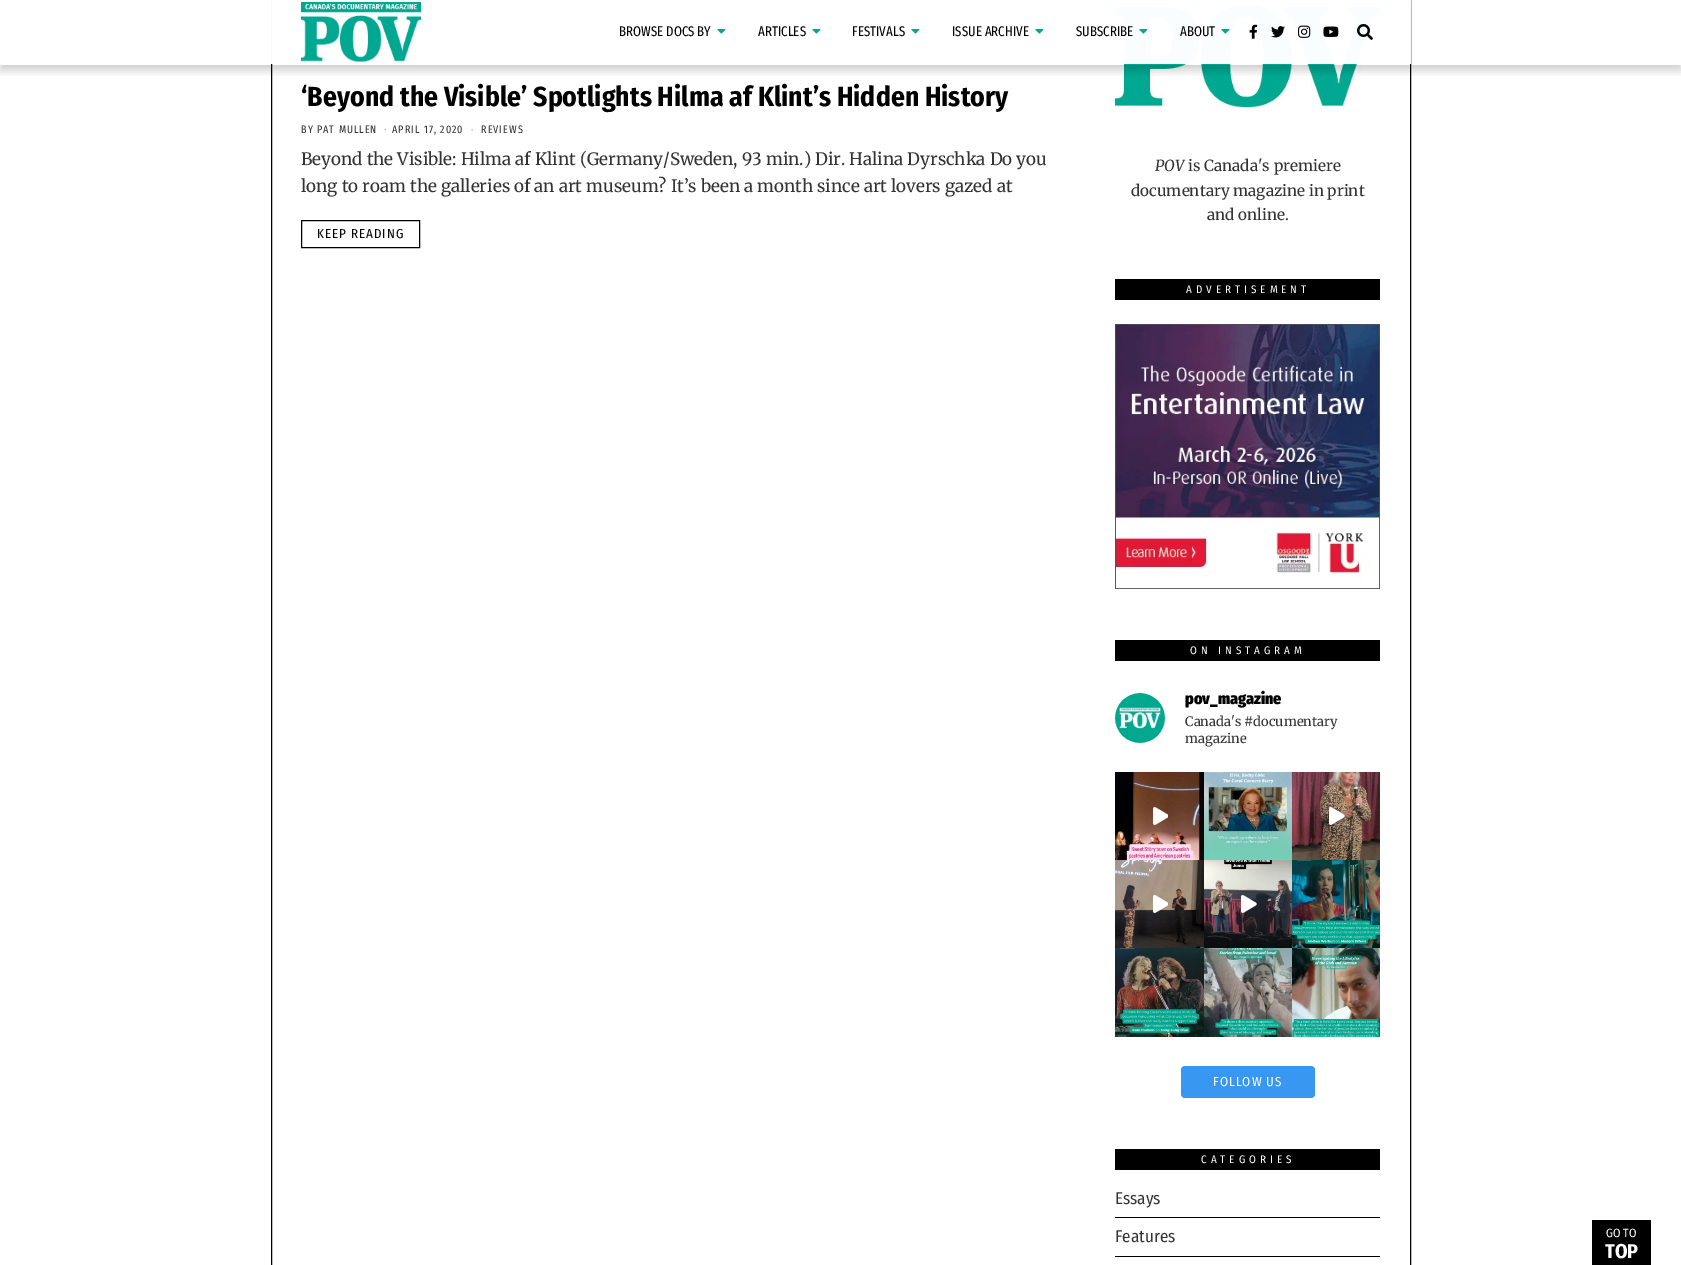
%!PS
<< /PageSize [1681 1265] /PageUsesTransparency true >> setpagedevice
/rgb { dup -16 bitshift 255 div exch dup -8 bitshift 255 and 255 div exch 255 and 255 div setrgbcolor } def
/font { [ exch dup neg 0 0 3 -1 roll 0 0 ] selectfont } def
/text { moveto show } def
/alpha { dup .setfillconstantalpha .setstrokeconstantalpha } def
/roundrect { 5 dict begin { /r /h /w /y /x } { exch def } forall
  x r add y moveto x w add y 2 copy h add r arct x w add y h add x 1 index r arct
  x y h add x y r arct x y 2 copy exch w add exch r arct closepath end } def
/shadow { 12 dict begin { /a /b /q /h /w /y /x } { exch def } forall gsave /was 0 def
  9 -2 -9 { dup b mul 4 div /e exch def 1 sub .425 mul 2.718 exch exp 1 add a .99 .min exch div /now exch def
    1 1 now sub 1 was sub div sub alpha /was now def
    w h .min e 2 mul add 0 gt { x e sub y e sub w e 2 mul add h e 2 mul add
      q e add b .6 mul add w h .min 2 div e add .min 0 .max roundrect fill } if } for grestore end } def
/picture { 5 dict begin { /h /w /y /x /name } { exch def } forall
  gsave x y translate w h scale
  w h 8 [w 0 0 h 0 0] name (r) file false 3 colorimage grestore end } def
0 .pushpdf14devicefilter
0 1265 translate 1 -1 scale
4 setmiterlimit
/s1 { /FiraSansExtraCondensed-Regular 14 font 16#000000 rgb } def
/s2 { /FiraSansCondensed-Bold 27.6 font 16#000000 rgb } def
/s3 { /Merriweather-Regular 17 font 16#333333 rgb } def
/s4 { /Merriweather-Italic 15.25 font 16#333333 rgb } def
/s5 { /Merriweather-Regular 15.25 font 16#333333 rgb } def
/s6 { /FiraSansCondensed-Black 16 font 16#000000 rgb } def
/s7 { /Merriweather-Regular 13 font 16#333333 rgb } def
/s8 { /FiraSansCondensed-Regular 17 font 16#333333 rgb } def
/s9 { /FiraSansCondensed-Regular 12 font 16#FFFFFF rgb } def
/s10 { /FiraSansCondensed-Bold 20 font 16#FFFFFF rgb } def
16#FFFFFF rgb
0 0 1681 1265 rectfill
16#000000 rgb
271.5 -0.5 1139 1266 rectstroke
(pic10.raw) 1115 1 265 107 picture
gsave
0 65 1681 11 rectclip
0 5 1681 65 0 5 0.2 shadow
grestore
0.98 alpha
16#FFFFFF rgb
271 0 1140 64 rectfill
1 alpha
(pic1.raw) 301 2 120 60 picture
s1
(BROWSE DOCS BY) 619 36 text
(pic2.raw) 717 29 9 5 picture
(ARTICLES) 758 36 text
(pic2.raw) 812 29 9 5 picture
(FESTIVALS) 852 36 text
(pic2.raw) 911 29 9 5 picture
(ISSUE ARCHIVE) 952 36 text
(pic2.raw) 1035 29 9 5 picture
(SUBSCRIBE) 1076 36 text
(pic3.raw) 1139 29 9 5 picture
(ABOUT) 1180 36 text
(pic4.raw) 1221 29 9 5 picture
(pic5.raw) 1249 24 9 15 picture
(pic6.raw) 1271 26 14 12 picture
(pic7.raw) 1298 25 13 13 picture
(pic8.raw) 1323 26 16 11 picture
(pic9.raw) 1357 24 16 16 picture
s2
(‘Beyond the Visible’ Spotlights Hilma af Klint’s Hidden History) 301 106 text
/FiraSansExtraCondensed-Regular 11 font
16#333333 rgb
301 133 moveto 1 0 (BY PAT MULLEN) ashow
16#ADADAD rgb
384 133 moveto 1 0 (·) ashow
16#333333 rgb
392 133 moveto 1 0 (APRIL 17, 2020) ashow
16#ADADAD rgb
471 133 moveto 1 0 (·) ashow
16#333333 rgb
481 133 moveto 1 0 (REVIEWS) ashow
s3
(Beyond the Visible: Hilma af Klint \(Germany/Sweden, 93 min.\) Dir. Halina Dyrschka Do you) 301 165 text
(long to roam the galleries of an art museum? It’s been a month since art lovers gazed at) 301 192 text
16#000000 rgb
301.5 220.5 118 27 rectstroke
/FiraSansCondensed-Regular 13 font
317 238 moveto 1 0 (KEEP READING) ashow
s4
(POV) 1155 171 text
s5
(is Canada's premiere) 1188 171 text
(documentary magazine in print) 1131 196 text
(and online.) 1207 220 text
16#000000 rgb
1115 279 265 21 rectfill
/FiraSansCondensed-Regular 11 font
16#FFFFFF rgb
1186 293 moveto 4 0 (ADVERTISEMENT) ashow
(pic11.raw) 1115 324 265 265 picture
16#000000 rgb
1115 640 265 21 rectfill
16#FFFFFF rgb
1190 654 moveto 4 0 (ON INSTAGRAM) ashow
(pic12.raw) 1115 693 50 50 picture
s6
(pov_magazine) 1185 704 text
s7
(Canada's #documentary) 1185 726 text
(magazine) 1185 743 text
(pic13.raw) 1115 772 89 88 picture
(pic14.raw) 1153 807 15 18 picture
(pic15.raw) 1204 772 88 88 picture
(pic16.raw) 1292 772 88 88 picture
(pic17.raw) 1329 807 16 18 picture
(pic18.raw) 1115 860 89 88 picture
(pic19.raw) 1153 895 15 18 picture
(pic20.raw) 1204 860 88 88 picture
(pic21.raw) 1241 895 16 18 picture
(pic22.raw) 1292 860 88 88 picture
(pic23.raw) 1115 948 89 89 picture
(pic24.raw) 1204 948 88 89 picture
(pic25.raw) 1292 948 88 89 picture
16#3897F0 rgb
1181 1066 134 32 4 roundrect fill
/FiraSansCondensed-Regular 13 font
16#FFFFFF rgb
1213 1086 moveto 1 0 (FOLLOW US) ashow
16#000000 rgb
1115 1149 265 21 rectfill
/FiraSansCondensed-Regular 11 font
16#FFFFFF rgb
1201 1163 moveto 4 0 (CATEGORIES) ashow
s8
(Essays) 1115 1204 text
16#000000 rgb
1115 1217 265 1 rectfill
s8
(Features) 1115 1242 text
16#000000 rgb
1115 1256 265 1 rectfill
1592 1220 59 45 rectfill
s9
(GO TO) 1606 1237 text
s10
(TOP) 1605 1258 text
.poppdf14devicefilter showpage
